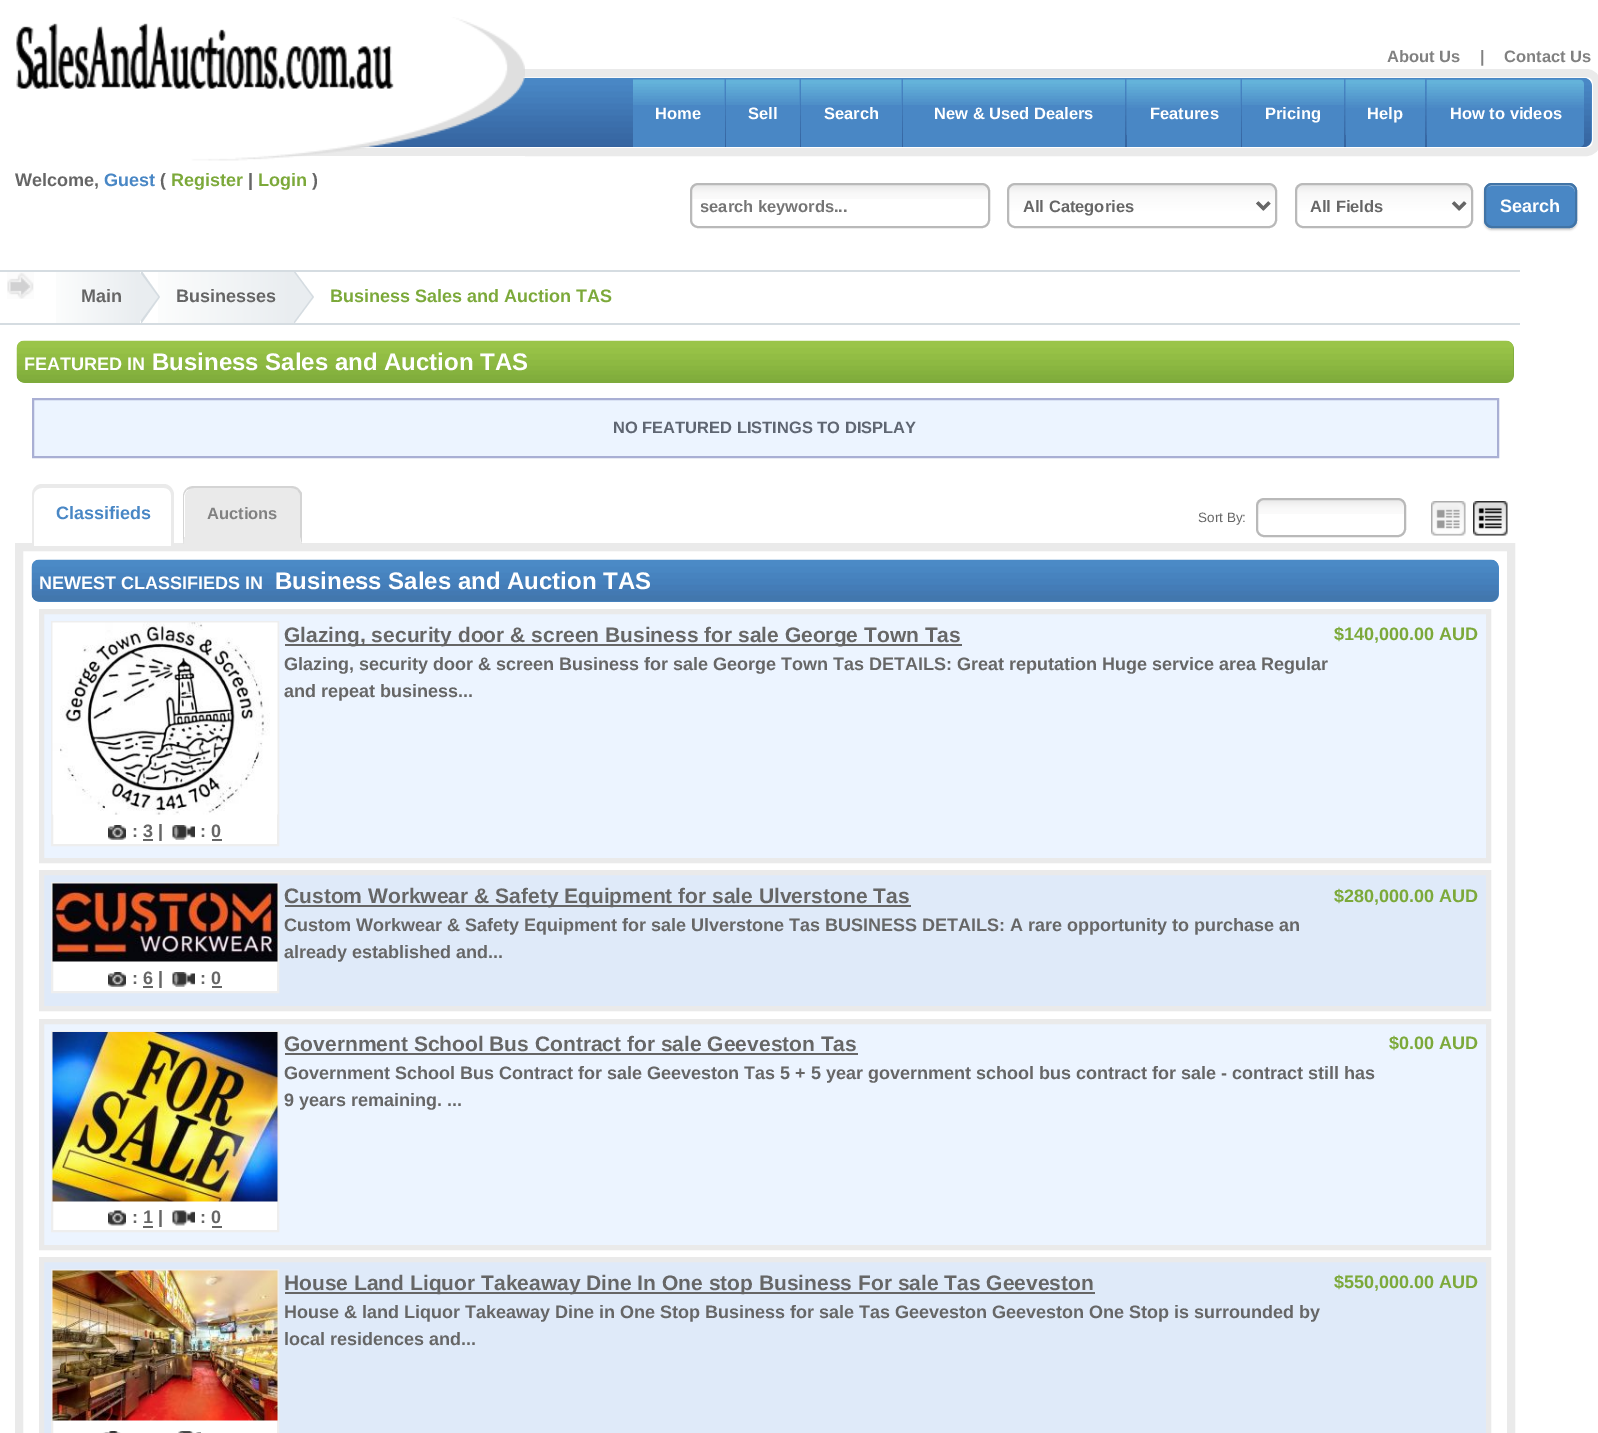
%!PS
<< /PageSize [1598 1433] /PageUsesTransparency true >> setpagedevice
/rgb { dup -16 bitshift 255 div exch dup -8 bitshift 255 and 255 div exch 255 and 255 div setrgbcolor } def
/font { [ exch dup neg 0 0 3 -1 roll 0 0 ] selectfont } def
/text { moveto show } def
/alpha { dup .setfillconstantalpha .setstrokeconstantalpha } def
/roundrect { 5 dict begin { /r /h /w /y /x } { exch def } forall
  x r add y moveto x w add y 2 copy h add r arct x w add y h add x 1 index r arct
  x y h add x y r arct x y 2 copy exch w add exch r arct closepath end } def
/shadow { 12 dict begin { /a /b /q /h /w /y /x } { exch def } forall gsave /was 0 def
  9 -2 -9 { dup b mul 4 div /e exch def 1 sub .425 mul 2.718 exch exp 1 add a .99 .min exch div /now exch def
    1 1 now sub 1 was sub div sub alpha /was now def
    w h .min e 2 mul add 0 gt { x e sub y e sub w e 2 mul add h e 2 mul add
      q e add b .6 mul add w h .min 2 div e add .min 0 .max roundrect fill } if } for grestore end } def
/picture { 5 dict begin { /h /w /y /x /name } { exch def } forall
  gsave x y translate w h scale
  w h 8 [w 0 0 h 0 0] name (r) file false 3 colorimage grestore end } def
0 .pushpdf14devicefilter
0 1433 translate 1 -1 scale
4 setmiterlimit
/s1 { /LiberationSans-Bold 16.5 font 16#818181 rgb } def
/s2 { /LiberationSans-Bold 16.5 font 16#FFFFFF rgb } def
/s3 { /LiberationSans-Bold 18 font 16#666666 rgb } def
/s4 { /LiberationSans-Bold 18 font 16#4987C5 rgb } def
/s5 { /LiberationSans-Bold 18 font 16#7CA93A rgb } def
/s6 { /LiberationSans-Bold 16.5 font 16#757575 rgb } def
/s7 { /LiberationSans-Bold 16.5 font 16#666666 rgb } def
/s8 { /LiberationSans-Bold 18 font 16#FFFFFF rgb } def
/s9 { /LiberationSans-Bold 24 font 16#FFFFFF rgb } def
/s10 { /LiberationSans-Bold 16.5 font 16#5F6672 rgb } def
/s11 { /LiberationSans-Regular 13.5 font 16#666666 rgb } def
/s12 { /LiberationSans-Bold 21 font 16#666666 rgb } def
16#FFFFFF rgb
0 0 1598 1433 rectfill
16#EAEAEA rgb
8 setlinewidth
4 73 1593 79 11 roundrect stroke
16#4987C5 rgb
9 78 1583 69 8 roundrect fill
(pic3.raw) 359 78 1233 69 picture
(pic1.raw) 0 17 525 144 picture
(pic2.raw) 16 23 378 66 picture
s1
(About Us) 1387 62 text
(|) 1480 62 text
(Contact Us) 1504 62 text
16#4987C5 rgb
633 86 92 61 rectfill
(pic4.raw) 633 79 92 26 picture
s2
(Home) 655 119 text
16#4987C5 rgb
726 86 74 61 rectfill
(pic5.raw) 726 79 74 26 picture
s2
(Sell) 748 119 text
16#4987C5 rgb
801 86 101 61 rectfill
(pic6.raw) 801 79 101 26 picture
s2
(Search) 824 119 text
16#4987C5 rgb
903 105 222 42 rectfill
(pic7.raw) 903 79 222 26 picture
s2
(New & Used Dealers) 934 119 text
16#4987C5 rgb
1127 86 114 61 rectfill
(pic8.raw) 1126 79 115 56 picture
s2
(Features) 1150 119 text
16#4987C5 rgb
1242 105 102 42 rectfill
(pic9.raw) 1242 79 102 26 picture
s2
(Pricing) 1265 119 text
16#4987C5 rgb
1346 135 79 12 rectfill
(pic10.raw) 1345 79 80 56 picture
s2
(Help) 1367 119 text
16#4987C5 rgb
1427 80 moveto 1579 80 lineto 1582 80 1584 82 1584 85 curveto 1584 142 lineto 1584 145 1582 147 1579 147 curveto 1427 147 lineto closepath fill
(pic11.raw) 1426 79 158 56 picture
s2
(How to videos) 1450 119 text
s3
(Welcome,) 15 186 text
s4
(Guest) 104 186 text
s3
(\() 160 186 text
s5
(Register) 171 186 text
s3
(|) 248 186 text
s5
(Login) 258 186 text
s3
(\)) 312 186 text
(pic12.raw) 690 184 300 15 picture
16#B9B9B9 rgb
2 setlinewidth
691 184 298 43 7 roundrect stroke
gsave
701 197 279 18 rectclip
s6
(search keywords...) 700 212 text
grestore
(pic13.raw) 1007 184 269 27 picture
1008 184 268 43 7 roundrect stroke
16#666666 rgb
3 setlinewidth
1257.5 202.5 moveto 1263.5 208.5 lineto 1269.5 202.5 lineto stroke
s7
(All Categories) 1023 212 text
(pic14.raw) 1295 184 178 27 picture
16#B9B9B9 rgb
2 setlinewidth
1296 184 176 43 7 roundrect stroke
16#666666 rgb
3 setlinewidth
1453 202.5 moveto 1459 208.5 lineto 1465 202.5 lineto stroke
(All Fields) 1310 212 text
16#000000 rgb
1484 185 93 45 8 1 0.2 shadow
16#4987C5 rgb
1484 183 93 45 8 roundrect fill
16#92B7DC rgb
1491 186 moveto 1569 186 lineto 1572 186 1575 189 1575 192 curveto 1575 182 1563 185 1556 185 curveto 1504 185 lineto 1497 185 1485 182 1485 192 curveto 1485 189 1488 186 1491 186 curveto closepath fill
16#4174A6 rgb
2 setlinewidth
1485 184 91 43 7 roundrect stroke
s8
(Search) 1500 212 text
(pic15.raw) 7 272 27 27 picture
16#D5DCE1 rgb
0 270 1520 2 rectfill
0 323 1520 2 rectfill
gsave 56 272 moveto 140 272 lineto 140 323 lineto 56 323 lineto closepath clip newpath
<< /ShadingType 2 /ColorSpace /DeviceRGB /Coords [45 297 140 297] /Extend [true true] /Function << /FunctionType 2 /Domain [0 1] /C0 [1 1 1] /C1 [0.914 0.929 0.941] /N 1 >> >> shfill grestore
gsave 158 272 moveto 294 272 lineto 294 323 lineto 158 323 lineto closepath clip newpath
<< /ShadingType 2 /ColorSpace /DeviceRGB /Coords [140 297 294 297] /Extend [true true] /Function << /FunctionType 2 /Domain [0 1] /C0 [1 1 1] /C1 [0.914 0.929 0.941] /N 1 >> >> shfill grestore
gsave
0 272 1520 51 rectclip
141 324 moveto 141 270 lineto 160 297 lineto closepath fill
16#E9EDF0 rgb
138 324 moveto 138 270 lineto 158 297 lineto closepath fill
grestore
s3
(Main) 81 302 text
gsave
0 272 1520 51 rectclip
16#D5DCE1 rgb
294 324 moveto 294 270 lineto 314 297 lineto closepath fill
16#E9EDF0 rgb
292 324 moveto 292 270 lineto 312 297 lineto closepath fill
grestore
(Businesses) 176 302 text
s5
(Business Sales and Auction TAS) 330 302 text
17 341 1497 42 8 roundrect fill
(pic16.raw) 16 340 1498 43 picture
s8
(FEATURED IN) 24 370 text
s9
(Business Sales and Auction TAS) 152 370 text
16#ECF4FF rgb
33 399 moveto 1498 399 lineto 1498 457 lineto 33 457 lineto closepath gsave fill grestore
16#A9AFD4 rgb
stroke
s10
(NO FEATURED LISTINGS TO DISPLAY) 613 433 text
16#EAEAEA rgb
8 setlinewidth
19 547 1492 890 rectstroke
16#FFFFFF rgb
43 485 moveto 163 485 lineto 169 485 174 490 174 496 curveto 174 546 lineto 32 546 lineto 32 496 lineto 32 490 37 485 43 485 curveto closepath fill
16#EAEAEA rgb
42 484 moveto 164 484 lineto 169 484 174 489 174 495 curveto 174 546 lineto 32 546 lineto 32 495 lineto 32 489 36 484 42 484 curveto closepath 42 488 moveto 164 488 lineto 168 488 171 491 171 495 curveto 171 546 lineto 34 546 lineto 34 495 lineto 34 491 38 488 42 488 curveto closepath eofill
s4
(Classifieds) 56 519 text
16#EAEAEA rgb
194 488 moveto 291 488 lineto 296 488 300 492 300 497 curveto 300 537 lineto 185 537 lineto 185 497 lineto 185 492 189 488 194 488 curveto closepath fill
16#D4D4D4 rgb
194 486 moveto 191 486 188 487 186 489 curveto 187 490 lineto 189 489 192 488 194 488 curveto 291 488 lineto 293 488 296 489 297 490 curveto 299 489 lineto 297 487 294 486 291 486 curveto closepath fill
302 544 moveto 300 537 lineto 300 496 lineto 300 494 299 492 297 490 curveto 299 489 lineto 302 493 lineto closepath fill
16#EAEAEA rgb
301 544 moveto 183 544 lineto 184 537 lineto 300 537 lineto closepath fill
16#D4D4D4 rgb
183 496 moveto 183 544 lineto 184 537 lineto 184 496 lineto 184 494 185 492 187 490 curveto 186 489 lineto 184 491 183 494 183 496 curveto closepath fill
s1
(Auctions) 207 519 text
s11
(Sort By:) 1198 522 text
(pic17.raw) 1256 499 149 15 picture
16#B9B9B9 rgb
2 setlinewidth
1257 499 148 37 7 roundrect stroke
(pic18.raw) 1431 501 35 35 picture
(pic19.raw) 1473 501 35 35 picture
16#4987C5 rgb
32 560 1467 42 8 roundrect fill
(pic20.raw) 31 559 1468 43 picture
s8
(NEWEST CLASSIFIEDS IN) 39 589 text
s9
(Business Sales and Auction TAS) 275 589 text
16#ECF4FF rgb
41.5 611.5 moveto 1488.5 611.5 lineto 1488.5 860.5 lineto 41.5 860.5 lineto closepath gsave fill grestore
16#EAEAEA rgb
5 setlinewidth
stroke
16#666666 rgb
285 644 677 2 rectfill
s12
(Glazing, security door & screen Business for sale George Town Tas) 284 642 text
s5
($140,000.00 AUD) 1334 640 text
s3
(Glazing, security door & screen Business for sale George Town Tas DETAILS: Great reputation Huge service area Regular) 284 670 text
(and repeat business...) 284 697 text
16#FFFFFF rgb
53 814 224 30 rectfill
16#EEEEEE rgb
2 setlinewidth
52 622 226 223 rectstroke
(pic21.raw) 52 622 226 193 picture
(pic22.raw) 108 825 18 15 picture
s3
(: 3 |) 132 837 text
(pic23.raw) 172 825 23 15 picture
(: 0) 200 837 text
143 839 10 2 rectfill
212 839 10 2 rectfill
16#DFEAF9 rgb
41.5 872.5 moveto 1488.5 872.5 lineto 1488.5 1008.5 lineto 41.5 1008.5 lineto closepath gsave fill grestore
16#EAEAEA rgb
5 setlinewidth
stroke
16#666666 rgb
285 905 626 2 rectfill
s12
(Custom Workwear & Safety Equipment for sale Ulverstone Tas) 284 903 text
s5
($280,000.00 AUD) 1334 902 text
s3
(Custom Workwear & Safety Equipment for sale Ulverstone Tas BUSINESS DETAILS: A rare opportunity to purchase an) 284 931 text
(already established and...) 284 958 text
16#FFFFFF rgb
53 961 224 30 rectfill
16#EEEEEE rgb
2 setlinewidth
52 883 226 109 rectstroke
(pic24.raw) 52 883 226 79 picture
(pic22.raw) 108 972 18 15 picture
s3
(: 6 |) 132 984 text
(pic23.raw) 172 972 23 15 picture
(: 0) 200 984 text
143 986 10 2 rectfill
212 986 10 2 rectfill
16#ECF4FF rgb
41.5 1021.5 moveto 1488.5 1021.5 lineto 1488.5 1247.5 lineto 41.5 1247.5 lineto closepath gsave fill grestore
16#EAEAEA rgb
5 setlinewidth
stroke
s12
(Government School Bus Contract for sale Geeveston Tas) 284 1051 text
285 1053 573 2 rectfill
s5
($0.00 AUD) 1389 1049 text
s3
(Government School Bus Contract for sale Geeveston Tas 5 + 5 year government school bus contract for sale - contract still has) 284 1079 text
(9 years remaining. ...) 284 1106 text
16#FFFFFF rgb
53 1201 224 29 rectfill
16#EEEEEE rgb
2 setlinewidth
52 1032 226 199 rectstroke
(pic25.raw) 52 1032 226 170 picture
(pic26.raw) 108 1210 18 16 picture
s3
(: 1 |) 132 1223 text
(pic27.raw) 172 1210 23 16 picture
(: 0) 200 1223 text
143 1226 10 2 rectfill
212 1226 10 2 rectfill
16#DFEAF9 rgb
41.5 1259.5 moveto 1488.5 1259.5 lineto 1488.5 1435.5 lineto 41.5 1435.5 lineto closepath gsave fill grestore
16#EAEAEA rgb
5 setlinewidth
stroke
16#FFFFFF rgb
53 1420 224 13 rectfill
16#EEEEEE rgb
2 setlinewidth
52 1270 226 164 rectstroke
(pic28.raw) 52 1270 226 151 picture
(pic29.raw) 103 1431 18 2 picture
(pic30.raw) 178 1431 23 2 picture
16#666666 rgb
285 1292 810 2 rectfill
s12
(House Land Liquor Takeaway Dine In One stop Business For sale Tas Geeveston) 284 1290 text
s5
($550,000.00 AUD) 1334 1288 text
s3
(House & land Liquor Takeaway Dine in One Stop Business for sale Tas Geeveston Geeveston One Stop is surrounded by) 284 1318 text
(local residences and...) 284 1345 text
.poppdf14devicefilter showpage
